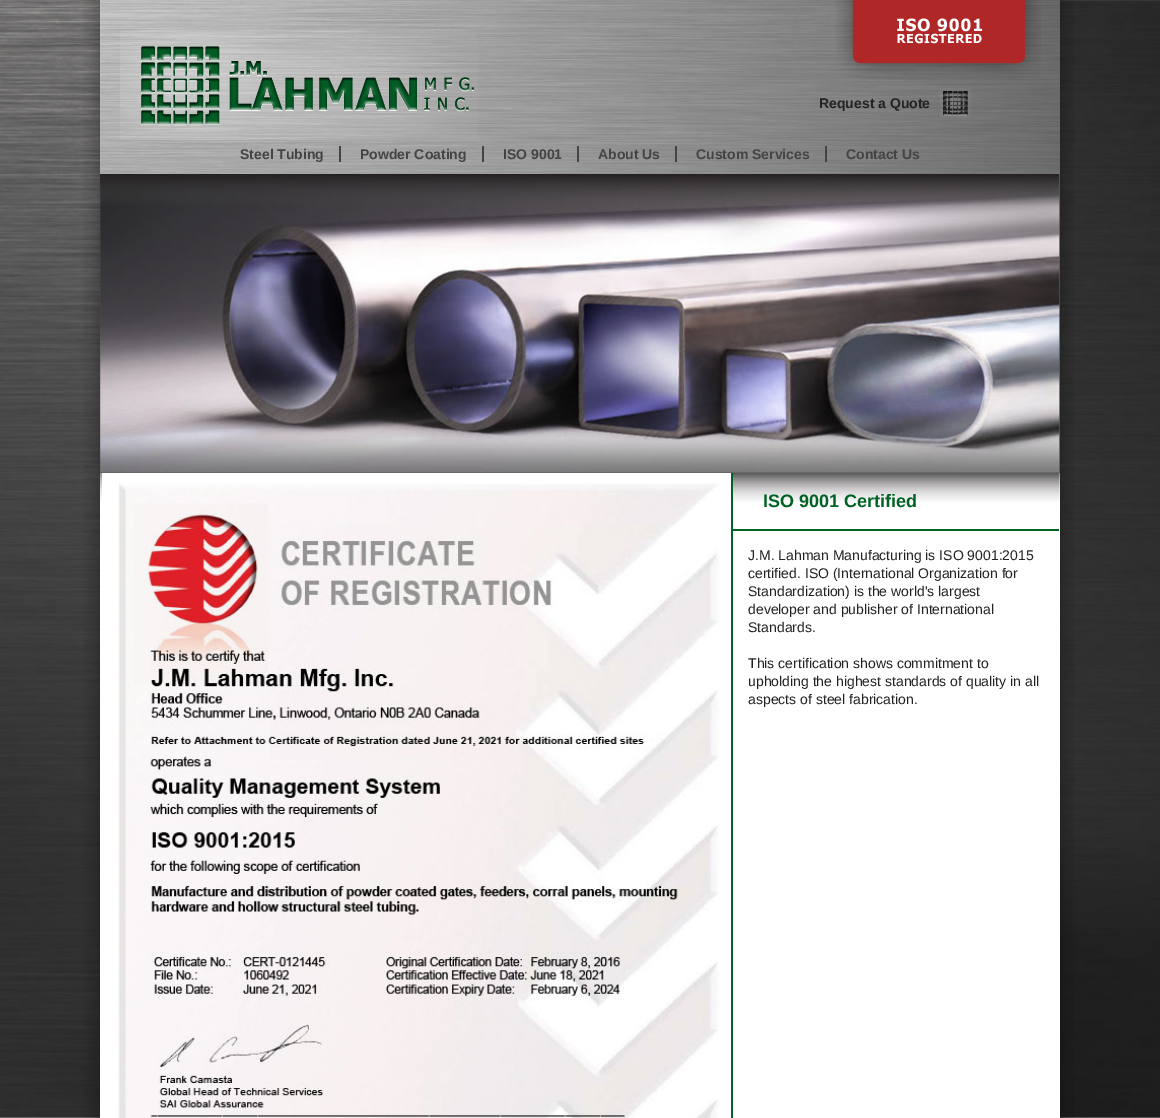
%!PS
<< /PageSize [1160 1118] >> setpagedevice
/rgb { dup -16 bitshift 255 div exch dup -8 bitshift 255 and 255 div exch 255 and 255 div setrgbcolor } def
/font { [ exch dup neg 0 0 3 -1 roll 0 0 ] selectfont } def
/text { moveto show } def
/picture { 5 dict begin { /h /w /y /x /name } { exch def } forall
  gsave x y translate w h scale
  w h 8 [w 0 0 h 0 0] name (r) file false 3 colorimage grestore end } def
0 1118 translate 1 -1 scale
4 setmiterlimit
/s1 { /LiberationSans-Bold 14 font 16#222222 rgb } def
/s2 { /LiberationSans-Bold 14 font 16#444444 rgb } def
/s3 { /LiberationSans-Bold 18 font 16#006325 rgb } def
/s4 { /LiberationSans-Regular 14 font 16#222222 rgb } def
16#FFFFFF rgb
0 0 1160 1118 rectfill
(pic1.raw) 0 0 1160 1118 picture
(pic2.raw) 83 0 992 1118 picture
(pic3.raw) 100 0 960 174 picture
(pic4.raw) 120 30 358 110 picture
(pic5.raw) 836 0 205 80 picture
s1
(Request a Quote) 819 108 text
(pic6.raw) 940 88 31 30 picture
s2
(Steel Tubing) 240 159 text
339 146 2 16 rectfill
(Powder Coating) 360 159 text
482 146 2 16 rectfill
(ISO 9001) 503 159 text
577 146 2 16 rectfill
(About Us) 598 159 text
675 146 2 16 rectfill
(Custom Services) 696 159 text
825 146 2 16 rectfill
(Contact Us) 846 159 text
16#555555 rgb
100 174 960 299 rectfill
(pic7.raw) 100 174 960 299 picture
16#FFFFFF rgb
100 473 960 645 rectfill
(pic8.raw) 100 473 960 29 picture
16#006325 rgb
731 473 2 645 rectfill
(pic9.raw) 102 473 629 645 picture
(pic10.raw) 733 473 326 28 picture
733 529 326 2 rectfill
s3
(ISO 9001 Certified) 763 507 text
s4
(J.M. Lahman Manufacturing is ISO 9001:2015) 748 560 text
(certified. ISO \(International Organization for) 748 578 text
(Standardization\) is the world's largest) 748 596 text
(developer and publisher of International) 748 614 text
(Standards.) 748 632 text
(This certification shows commitment to) 748 668 text
(upholding the highest standards of quality in all) 748 686 text
(aspects of steel fabrication.) 748 704 text
showpage
